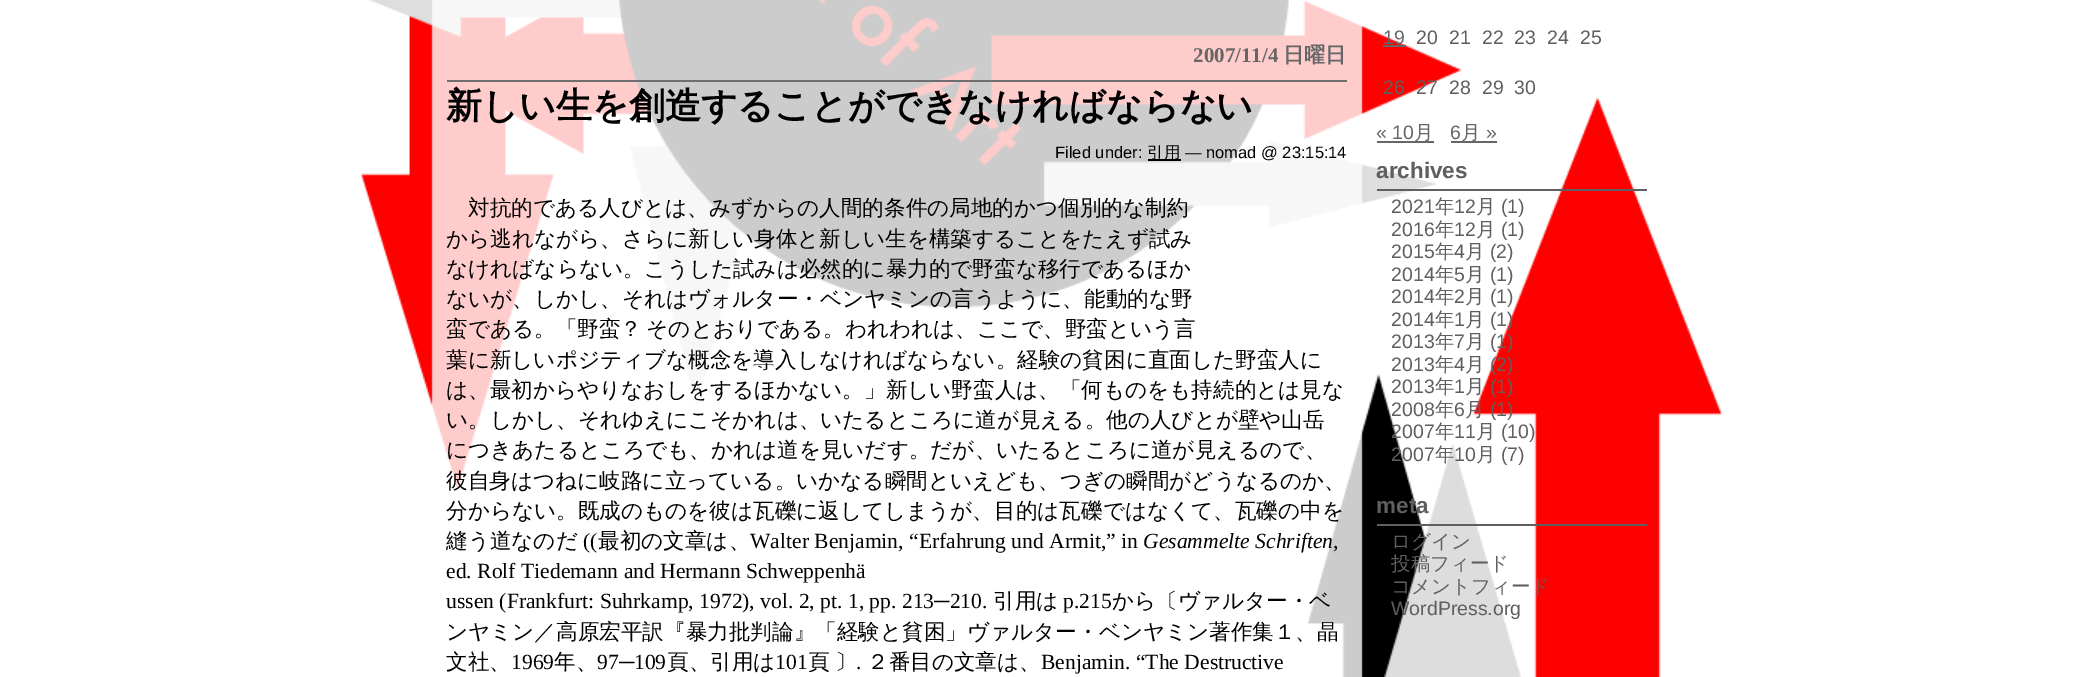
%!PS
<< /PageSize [2092 677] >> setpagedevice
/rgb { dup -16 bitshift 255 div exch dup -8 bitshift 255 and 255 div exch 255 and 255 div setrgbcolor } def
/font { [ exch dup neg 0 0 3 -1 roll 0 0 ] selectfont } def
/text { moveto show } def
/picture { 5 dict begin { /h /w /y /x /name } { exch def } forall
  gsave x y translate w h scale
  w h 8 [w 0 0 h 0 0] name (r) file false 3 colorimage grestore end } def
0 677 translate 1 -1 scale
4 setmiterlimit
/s1 { /LiberationSerif-Bold 21 font 16#666666 rgb } def
/s2 { /WenQuanYiZenHei-Bold 21 font 16#666666 rgb } def
/s3 { /WenQuanYiZenHei-Bold 36 font 16#000000 rgb } def
/s4 { /LiberationSans-Regular 16.5 font 16#000000 rgb } def
/s5 { /WenQuanYiZenHei-Medium 16.5 font 16#000000 rgb } def
/s6 { /WenQuanYiZenHei-Medium 21.6 font 16#000000 rgb } def
/s7 { /LiberationSerif-Regular 21.6 font 16#000000 rgb } def
/s8 { /LiberationSerif-Italic 21.6 font 16#000000 rgb } def
/s9 { /LiberationSans-Regular 19.5 font 16#666666 rgb } def
/s10 { /LiberationSans-Regular 19.5 font 16#5F5F5F rgb } def
/s11 { /WenQuanYiZenHei-Medium 19.5 font 16#666666 rgb } def
/s12 { /LiberationSans-Bold 22.5 font 16#5F5F5F rgb } def
/s13 { /WenQuanYiZenHei-Medium 19.5 font 16#5F5F5F rgb } def
16#FFFFFF rgb
0 0 2092 677 rectfill
(pic1.raw) 361 0 1101 488 picture
(pic2.raw) 1307 97 416 580 picture
16#6F6F6F rgb
447 80 900 2 rectfill
s1
(2007/11/4) 1193 62 text
s2
(日曜日) 1283 62 text
s3
(新しい生を創造することができなければならない) 446 118 text
s4
(Filed under:) 1055 158 text
1148 159 33 2 rectfill
s5
(引用) 1147 158 text
s4
(— nomad @ 23:15:14) 1185 158 text
s6
(対抗的である人びとは、みずからの人間的条件の局地的かつ個別的な制約) 468 215 text
(から逃れながら、さらに新しい身体と新しい生を構築することをたえず試み) 446 246 text
(なければならない。こうした試みは必然的に暴力的で野蛮な移行であるほか) 446 276 text
(ないが、しかし、それはヴォルター・ベンヤミンの言うように、能動的な野) 446 306 text
446 336 moveto -2 0 32 (蛮である。「野蛮？ そのとおりである。われわれは、ここで、野蛮という言) widthshow
(葉に新しいポジティブな概念を導入しなければならない。経験の貧困に直面した野蛮人に) 446 367 text
(は、最初からやりなおしをするほかない。」新しい野蛮人は、「何ものをも持続的とは見な) 446 397 text
(い。しかし、それゆえにこそかれは、いたるところに道が見える。他の人びとが壁や山岳) 446 427 text
(につきあたるところでも、かれは道を見いだす。だが、いたるところに道が見えるので、) 446 457 text
(彼自身はつねに岐路に立っている。いかなる瞬間といえども、つぎの瞬間がどうなるのか、) 446 488 text
(分からない。既成のものを彼は瓦礫に返してしまうが、目的は瓦礫ではなくて、瓦礫の中を) 446 518 text
(縫う道なのだ) 446 548 text
s7
(\(\() 583 548 text
s6
(最初の文章は、) 598 548 text
s7
(Walter Benjamin, “Erfahrung und Armit,” in) 750 548 text
s8
(Gesammelte Schriften,) 1143 548 text
s7
(ed. Rolf Tiedemann and Hermann Schweppenhä) 446 578 text
(ussen \(Frankfurt: Suhrkamp, 1972\), vol. 2, pt. 1, pp. 213─210.) 446 608 text
s6
(引用は) 993 608 text
s7
(p.215) 1063 608 text
s6
(から〔ヴァルター・ベ) 1112 608 text
(ンヤミン／高原宏平訳『暴力批判論』「経験と貧困」ヴァルター・ベンヤミン著作集１、晶) 446 639 text
(文社、) 446 669 text
s7
(1969) 511 669 text
s6
(年、) 554 669 text
s7
(97─109) 597 669 text
s6
(頁、引用は) 667 669 text
s7
(101) 775 669 text
s6
(頁) 808 669 text
(〕) 835 669 text
s7
(.) 856 669 text
s6
(２番目の文章は、) 867 669 text
s7
(Benjamin. “The Destructive) 1041 669 text
s9
(19) 1383 44 text
1383 45 23 2 rectfill
s10
(20) 1416 44 text
(21) 1449 44 text
(22) 1482 44 text
(23) 1514 44 text
(24) 1547 44 text
(25) 1580 44 text
(26) 1383 94 text
(27) 1416 94 text
(28) 1449 94 text
(29) 1482 94 text
(30) 1514 94 text
s9
(« 10) 1376 139 text
1377 141 57 2 rectfill
s11
(月) 1414 139 text
s9
(6) 1450 139 text
1451 141 46 2 rectfill
s11
(月) 1461 139 text
s9
(») 1486 139 text
16#5F5F5F rgb
1377 189 270 2 rectfill
s12
(archives) 1376 178 text
s10
(2021) 1391 213 text
s13
(年) 1435 213 text
s10
(12) 1454 213 text
s13
(月) 1476 213 text
s10
(\(1\)) 1501 213 text
(2016) 1391 236 text
s13
(年) 1435 236 text
s10
(12) 1454 236 text
s13
(月) 1476 236 text
s10
(\(1\)) 1501 236 text
(2015) 1391 258 text
s13
(年) 1435 258 text
s10
(4) 1454 258 text
s13
(月) 1465 258 text
s10
(\(2\)) 1490 258 text
(2014) 1391 281 text
s13
(年) 1435 281 text
s10
(5) 1454 281 text
s13
(月) 1465 281 text
s10
(\(1\)) 1490 281 text
(2014) 1391 303 text
s13
(年) 1435 303 text
s10
(2) 1454 303 text
s13
(月) 1465 303 text
s10
(\(1\)) 1490 303 text
(2014) 1391 326 text
s13
(年) 1435 326 text
s10
(1) 1454 326 text
s13
(月) 1465 326 text
s10
(\(1\)) 1490 326 text
(2013) 1391 348 text
s13
(年) 1435 348 text
s10
(7) 1454 348 text
s13
(月) 1465 348 text
s10
(\(1\)) 1490 348 text
(2013) 1391 371 text
s13
(年) 1435 371 text
s10
(4) 1454 371 text
s13
(月) 1465 371 text
s10
(\(2\)) 1490 371 text
(2013) 1391 393 text
s13
(年) 1435 393 text
s10
(1) 1454 393 text
s13
(月) 1465 393 text
s10
(\(1\)) 1490 393 text
(2008) 1391 416 text
s13
(年) 1435 416 text
s10
(6) 1454 416 text
s13
(月) 1465 416 text
s10
(\(1\)) 1490 416 text
(2007) 1391 438 text
s13
(年) 1435 438 text
s10
(11) 1454 438 text
s13
(月) 1476 438 text
s10
(\(10\)) 1501 438 text
(2007) 1391 461 text
s13
(年) 1435 461 text
s10
(10) 1454 461 text
s13
(月) 1476 461 text
s10
(\(7\)) 1501 461 text
1377 524 270 2 rectfill
s12
(meta) 1376 513 text
s13
(ログイン) 1391 548 text
(投稿フィード) 1391 570 text
(コメントフィード) 1391 593 text
s10
(WordPress.org) 1391 615 text
showpage
